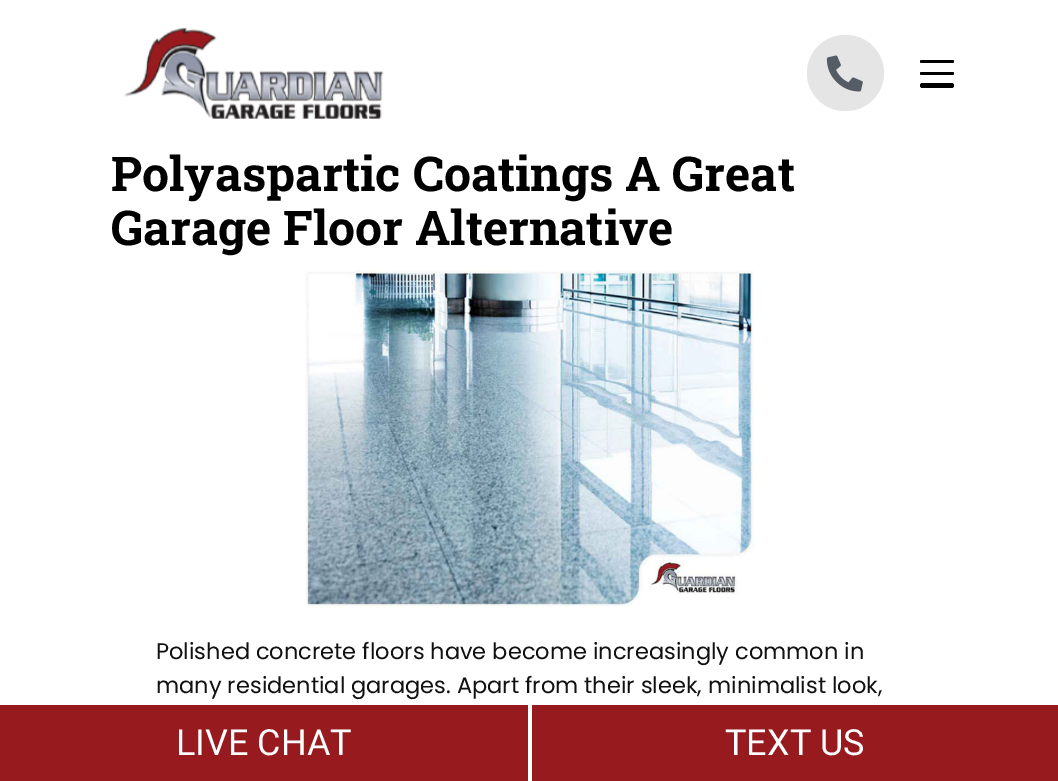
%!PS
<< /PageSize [1058 781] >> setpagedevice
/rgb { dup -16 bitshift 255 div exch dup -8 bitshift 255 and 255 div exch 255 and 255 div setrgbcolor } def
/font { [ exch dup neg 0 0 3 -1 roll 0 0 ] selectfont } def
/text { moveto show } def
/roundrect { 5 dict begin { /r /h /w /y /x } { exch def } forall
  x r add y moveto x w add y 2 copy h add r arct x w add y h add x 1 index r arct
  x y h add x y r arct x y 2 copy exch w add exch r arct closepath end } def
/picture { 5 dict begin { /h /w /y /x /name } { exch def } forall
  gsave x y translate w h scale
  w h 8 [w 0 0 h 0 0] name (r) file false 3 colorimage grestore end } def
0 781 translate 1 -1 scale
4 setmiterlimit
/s1 { /RobotoSlab-Bold 48 font 16#000000 rgb } def
/s2 { /Poppins-Regular 22.5 font 16#111111 rgb } def
/s3 { /Roboto-Regular 36 font 16#FFFFFF rgb } def
16#FFFFFF rgb
0 0 1058 781 rectfill
(pic1.raw) 124 28 260 91 picture
16#E5E5E5 rgb
807 35 77 76 38 roundrect fill
(pic2.raw) 826 55 37 37 picture
16#000000 rgb
920 60 34 3 1.5 roundrect fill
920 72 34 3 1.5 roundrect fill
920 83 34 5 2.5 roundrect fill
s1
(Polyaspartic Coatings A Great) 111 191 text
(Garage Floor Alternative) 111 245 text
(pic3.raw) 305 270 450 338 picture
s2
(Polished concrete floors have become increasingly common in) 156 659 text
(many residential garages. Apart from their sleek, minimalist look,) 156 693 text
16#971A1E rgb
0 705 528 76 rectfill
s3
(LIVE CHAT) 176 755 text
16#971A1E rgb
532 705 526 76 rectfill
s3
(TEXT US) 725 755 text
showpage
